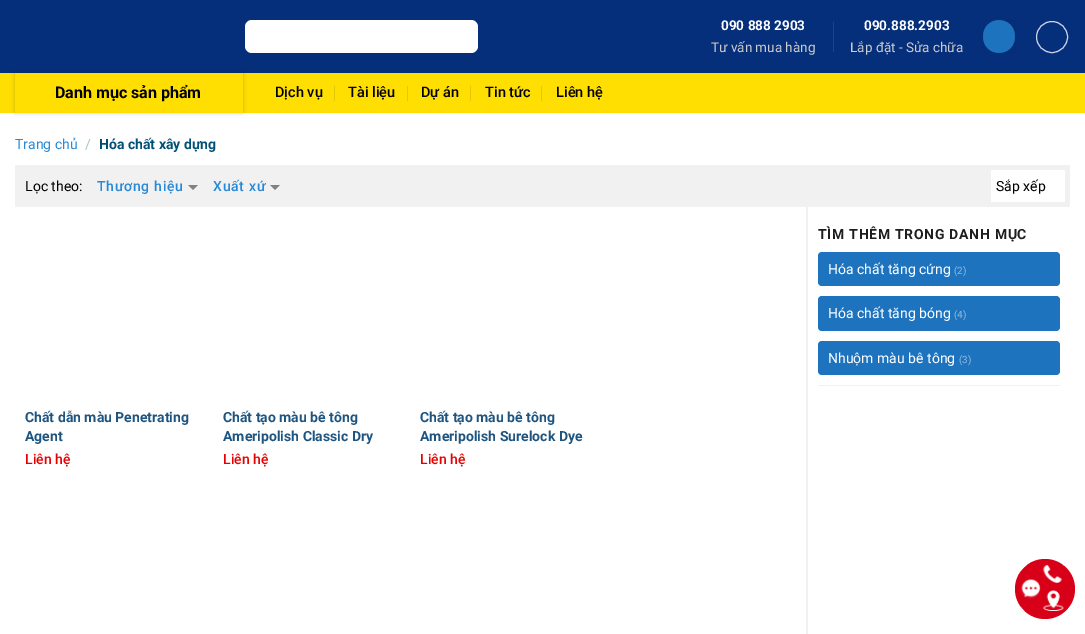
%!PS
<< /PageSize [1085 634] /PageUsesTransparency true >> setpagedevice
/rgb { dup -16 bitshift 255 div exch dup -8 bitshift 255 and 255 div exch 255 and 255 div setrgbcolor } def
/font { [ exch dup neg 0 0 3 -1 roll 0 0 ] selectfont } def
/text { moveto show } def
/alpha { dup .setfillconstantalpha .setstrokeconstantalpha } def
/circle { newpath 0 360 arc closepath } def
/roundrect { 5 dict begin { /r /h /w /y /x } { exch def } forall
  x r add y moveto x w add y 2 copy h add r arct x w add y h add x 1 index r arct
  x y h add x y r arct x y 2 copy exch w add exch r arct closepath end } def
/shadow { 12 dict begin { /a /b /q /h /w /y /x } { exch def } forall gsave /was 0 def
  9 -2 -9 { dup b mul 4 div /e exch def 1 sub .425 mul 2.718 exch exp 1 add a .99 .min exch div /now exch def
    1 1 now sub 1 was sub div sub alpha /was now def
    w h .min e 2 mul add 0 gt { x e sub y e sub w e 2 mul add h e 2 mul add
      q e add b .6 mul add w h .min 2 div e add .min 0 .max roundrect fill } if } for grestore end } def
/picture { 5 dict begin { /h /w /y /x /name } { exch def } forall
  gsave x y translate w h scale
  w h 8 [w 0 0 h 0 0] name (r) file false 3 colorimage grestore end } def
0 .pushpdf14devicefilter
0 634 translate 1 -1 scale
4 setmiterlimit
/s1 { /Roboto-Bold 13.5 font 16#FFFFFF rgb } def
/s2 { /Roboto-Regular 13.5 font 16#CCCCCC rgb } def
/s3 { /Roboto-Bold 16 font 16#000000 rgb } def
/s4 { /Roboto-Medium 14.5 font 16#000000 rgb } def
/s5 { /Roboto-Regular 14 font 16#288AD6 rgb } def
/s6 { /Roboto-Regular 14 font 16#A6C2CF rgb } def
/s7 { /Roboto-Bold 14 font 16#005076 rgb } def
/s8 { /Roboto-Regular 14 font 16#000000 rgb } def
/s9 { /Roboto-Regular 14 font 16#FFFFFF rgb } def
/s10 { /Roboto-Regular 10 font 16#8FB9DF rgb } def
/s11 { /Roboto-Bold 14 font 16#1E5480 rgb } def
/s12 { /Roboto-Medium 14 font 16#E80000 rgb } def
16#FFFFFF rgb
0 0 1085 634 rectfill
16#052E7B rgb
0 0 1085 73 rectfill
16#FFFFFF rgb
245 20 233 33 7 roundrect fill
s1
(090 888 2903) 721 30 text
s2
(Tư vấn mua hàng) 711 52 text
16#1E4388 rgb
833 22 1 30 rectfill
s1
(090.888.2903) 864 30 text
s2
(Lắp đặt - Sửa chữa) 850 52 text
16#1E73BE rgb
983 20 32 33 16 roundrect fill
0.05 alpha
16#000000 rgb
983.5 20.5 31 32 rectstroke
1 alpha
16#CDD5E5 rgb
1052 37 15.5 circle stroke
16#FFDE02 rgb
0 73 1085 40 rectfill
gsave
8 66 moveto 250 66 lineto 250 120 lineto 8 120 lineto closepath 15 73 moveto 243 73 lineto 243 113 lineto 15 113 lineto closepath eoclip newpath
16#000000 rgb
15 73 228 40 0 2 0.2 shadow
grestore
s3
(Danh mục sản phẩm) 55 98 text
s4
(Dịch vụ) 275 97 text
16#E6C802 rgb
334 86 1 15 rectfill
s4
(Tài liệu) 348 97 text
16#E6C802 rgb
407 86 1 15 rectfill
s4
(Dự án) 421 97 text
16#E6C802 rgb
470 86 1 15 rectfill
s4
(Tin tức) 485 97 text
16#E6C802 rgb
541 86 1 15 rectfill
s4
(Liên hệ) 556 97 text
s5
(Trang chủ) 15 149 text
s6
(/) 85 149 text
s7
(Hóa chất xây dựng) 99 149 text
16#F1F1F1 rgb
15 165 1055 42 rectfill
s8
(Lọc theo:) 25 191 text
/Roboto-Medium 14 font
16#288AD6 rgb
97 191 moveto 0.7 0 (Thương hiệu) ashow
16#818181 rgb
188 185 moveto 198 185 lineto 193 190 lineto closepath fill
16#288AD6 rgb
213 191 moveto 0.7 0 (Xuất xứ) ashow
16#818181 rgb
270 185 moveto 280 185 lineto 275 190 lineto closepath fill
16#FFFFFF rgb
991 170 74 32 rectfill
s8
(Sắp xếp) 996 191 text
16#F1F1F1 rgb
806 207 2 427 rectfill
818 385 242 1 rectfill
/Roboto-Bold 14 font
16#1E1E1E rgb
818 239 moveto 0.7 0 (TÌM THÊM TRONG DANH MỤC) ashow
16#1E73BE rgb
818 252 242 34 4 roundrect fill
s9
(Hóa chất tăng cứng) 828 274 text
s10
(\(2\)) 954 274 text
16#1E73BE rgb
818 296 242 35 4 roundrect fill
s9
(Hóa chất tăng bóng) 828 318 text
s10
(\(4\)) 954 318 text
16#1E73BE rgb
818 341 242 34 4 roundrect fill
s9
(Nhuộm màu bê tông) 828 363 text
s10
(\(3\)) 959 363 text
s11
(Chất dẫn màu Penetrating) 25 422 text
(Agent) 25 441 text
s12
(Liên hệ) 25 464 text
s11
(Chất tạo màu bê tông) 223 422 text
(Ameripolish Classic Dry) 223 441 text
s12
(Liên hệ) 223 464 text
s11
(Chất tạo màu bê tông) 420 422 text
(Ameripolish Surelock Dye) 420 441 text
s12
(Liên hệ) 420 464 text
16#D70018 rgb
1045 589 30 circle fill
(pic1.raw) 1021 565 43 46 picture
.poppdf14devicefilter showpage
